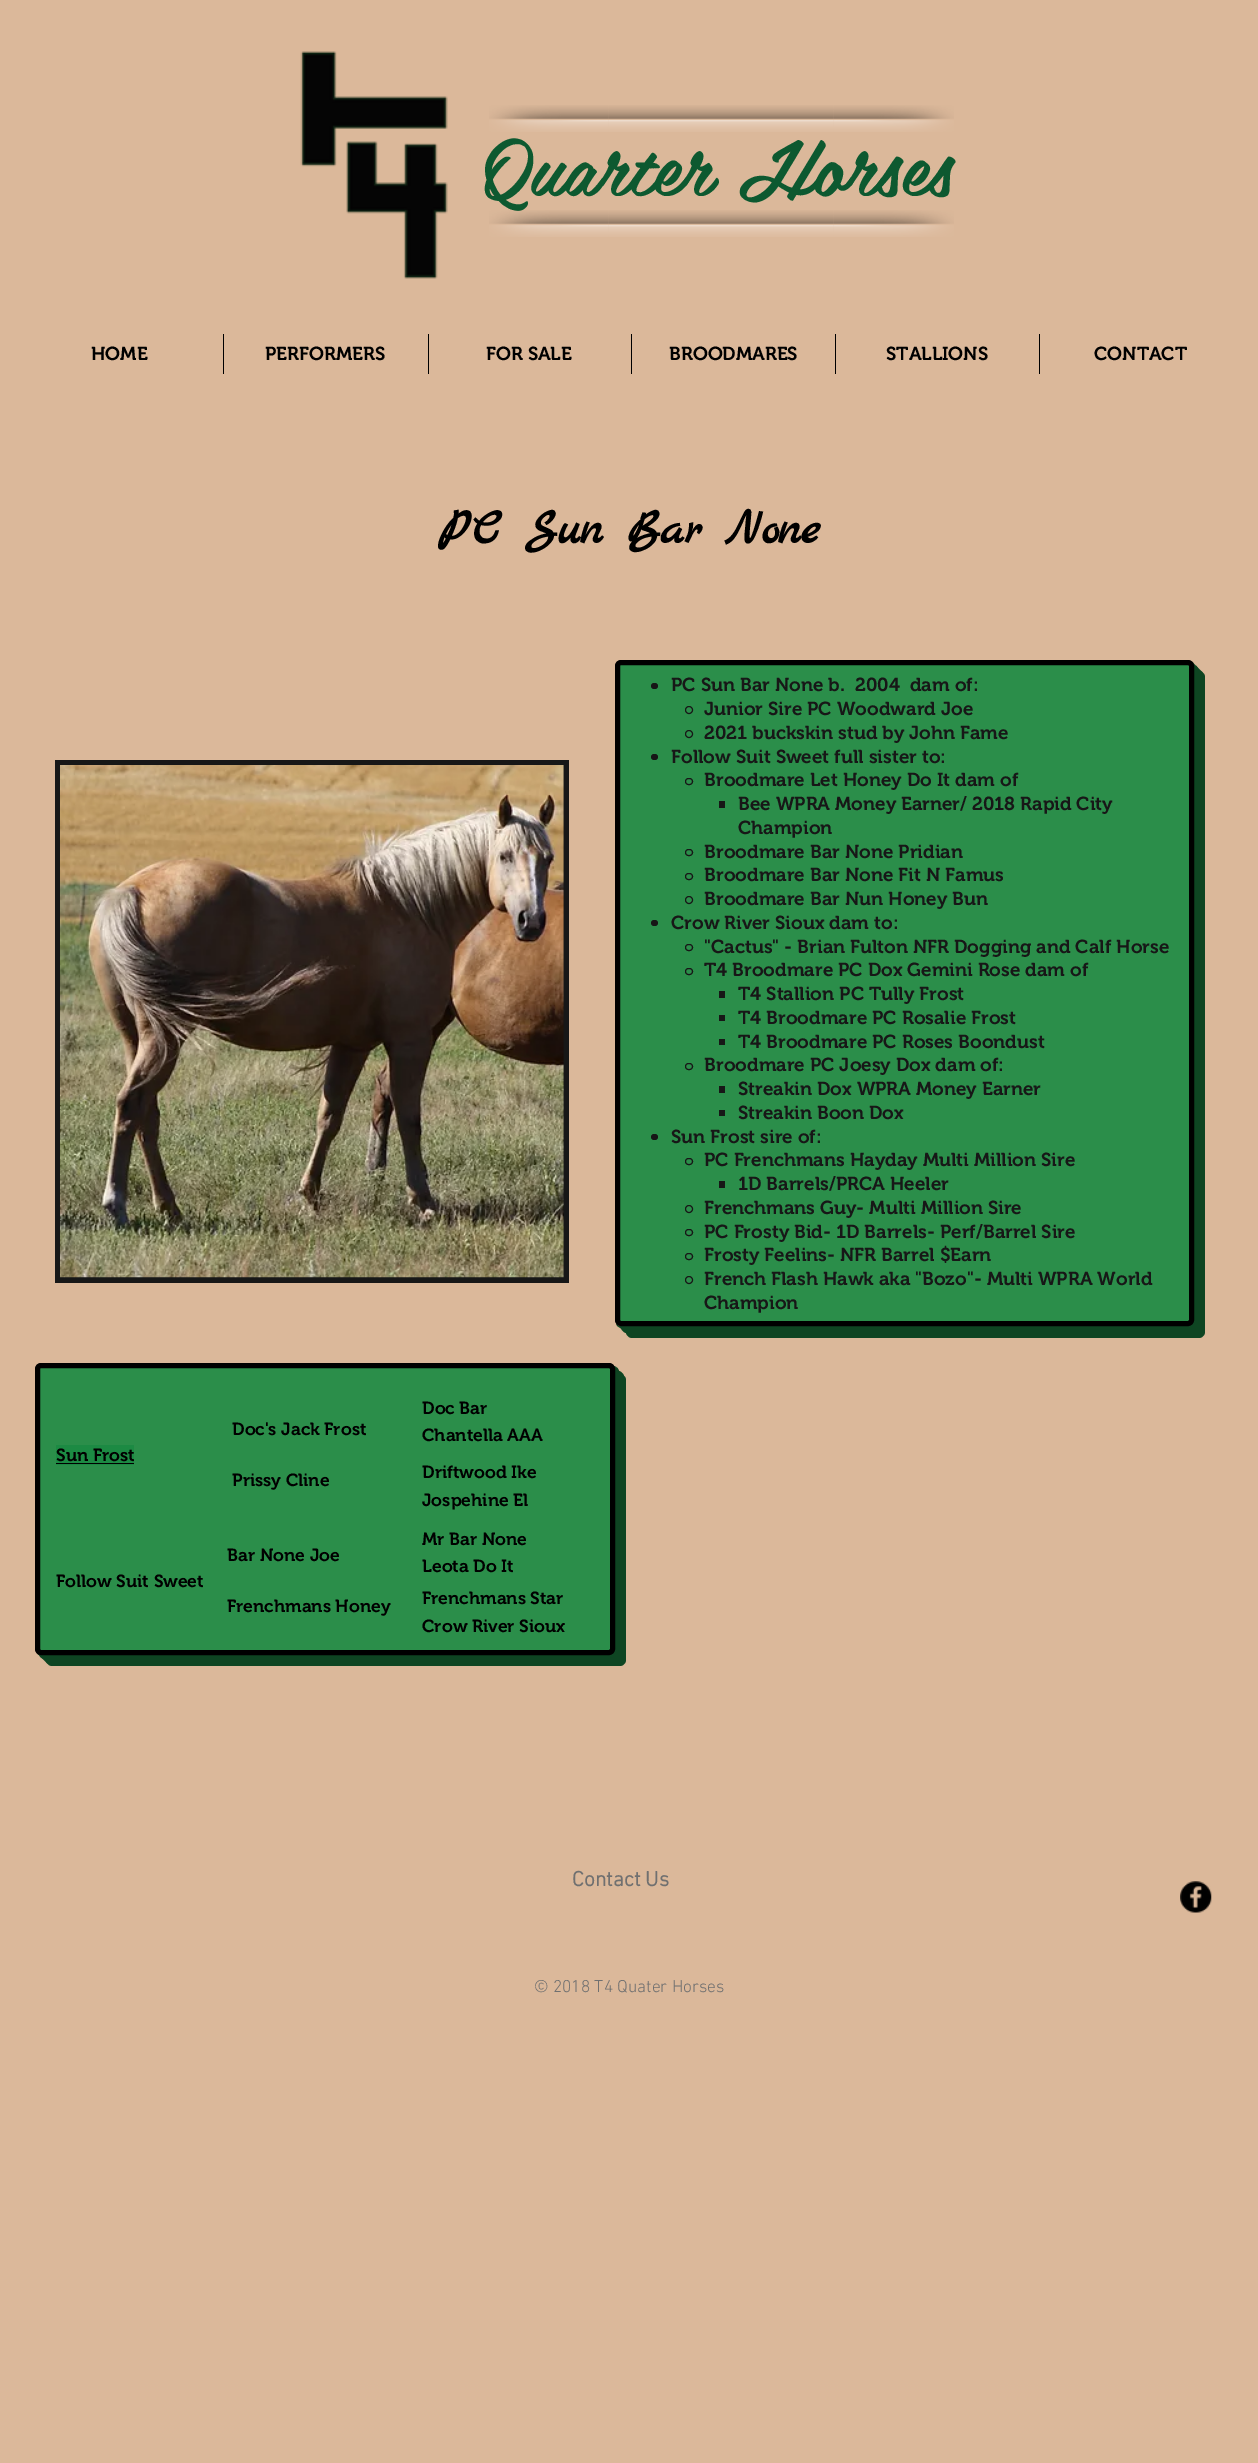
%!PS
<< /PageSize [1258 2463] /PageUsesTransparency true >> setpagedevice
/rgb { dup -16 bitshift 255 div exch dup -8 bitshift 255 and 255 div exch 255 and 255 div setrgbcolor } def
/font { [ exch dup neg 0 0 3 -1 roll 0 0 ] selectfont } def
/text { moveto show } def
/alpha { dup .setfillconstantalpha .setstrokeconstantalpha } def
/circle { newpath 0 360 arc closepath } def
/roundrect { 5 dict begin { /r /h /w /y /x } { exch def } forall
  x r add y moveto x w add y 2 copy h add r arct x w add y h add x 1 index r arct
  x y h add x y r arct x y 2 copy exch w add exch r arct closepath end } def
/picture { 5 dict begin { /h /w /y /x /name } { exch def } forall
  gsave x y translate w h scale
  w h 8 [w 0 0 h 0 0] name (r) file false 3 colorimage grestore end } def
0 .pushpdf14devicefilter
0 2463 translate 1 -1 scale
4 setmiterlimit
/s1 { /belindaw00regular-Regular 78.75 font 16#0D5930 rgb } def
/s2 { /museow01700-SemiBold 18.75 font 16#000000 rgb } def
/s3 { /MarckScript-Bold 50 font 16#000000 rgb } def
/s4 { /museow01700-SemiBold 18.75 font 16#171717 rgb } def
/s5 { /museow01700-SemiBold 17.5 font 16#000000 rgb } def
/s6 { /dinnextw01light-Bold 21.25 font 16#707070 rgb } def
/s7 { /dinnextw01light-Light 17.5 font 16#707070 rgb } def
16#DBB89A rgb
0 0 1258 2463 rectfill
(pic1.raw) 300 51 148 228 picture
(pic3.raw) 608 105 226 27 picture
(pic2.raw) 489 105 120 27 picture
(pic4.raw) 833 105 121 27 picture
s1
(Quarter Horses) 483 196 text
(pic3.raw) 608 210 226 27 picture
(pic5.raw) 489 210 120 27 picture
(pic4.raw) 833 210 121 27 picture
s2
(HOME) 91 360 text
223 334 1 40 rectfill
(PERFORMERS) 265 360 text
428 334 1 40 rectfill
(FOR SALE) 486 360 text
631 334 1 40 rectfill
(BROODMARES) 669 360 text
835 334 1 40 rectfill
(STALLIONS) 886 360 text
1039 334 1 40 rectfill
(CONTACT) 1094 360 text
s3
(PC Sun Bar None) 439 543 text
16#171717 rgb
55 760 514 523 rectfill
(pic6.raw) 60 765 504 513 picture
16#0E4522 rgb
626 1326 moveto 626 1332 lineto 626 1335 629 1338 632 1338 curveto 1199 1338 lineto 1202 1338 1205 1335 1205 1332 curveto 1205 677 lineto 1205 674 1202 671 1199 671 curveto 1194 671 lineto 1194 1320 lineto 1194 1323 1191 1326 1188 1326 curveto closepath fill
624 1326 moveto 624 1329 lineto 624 1332 627 1335 630 1335 curveto 1197 1335 lineto 1200 1335 1203 1332 1203 1329 curveto 1203 675 lineto 1203 672 1200 669 1197 669 curveto 1194 669 lineto 1194 1320 lineto 1194 1323 1191 1326 1188 1326 curveto closepath fill
621 1326 moveto 621 1327 lineto 621 1330 624 1333 627 1333 curveto 1194 1333 lineto 1197 1333 1200 1330 1200 1327 curveto 1200 672 lineto 1200 669 1197 666 1194 666 curveto 1194 1320 lineto 1194 1323 1191 1326 1188 1326 curveto closepath fill
619 1326 moveto 620 1328 622 1330 625 1330 curveto 1192 1330 lineto 1195 1330 1198 1327 1198 1324 curveto 1198 670 lineto 1198 667 1196 665 1193 664 curveto 1194 666 lineto 1194 1320 lineto 1194 1323 1191 1326 1188 1326 curveto closepath fill
616 1324 moveto 617 1326 619 1328 622 1328 curveto 1189 1328 lineto 1192 1328 1195 1325 1195 1322 curveto 1195 667 lineto 1195 665 1194 663 1192 662 curveto 1193 663 1194 664 1194 666 curveto 1194 1320 lineto 1194 1323 1191 1326 1188 1326 curveto 621 1326 lineto 619 1326 617 1325 616 1324 curveto closepath fill
0.92 alpha
16#1C8A43 rgb
617.5 662.5 574 661 3.5 roundrect fill
1 alpha
16#000000 rgb
5 setlinewidth
617.5 662.5 574 661 3.5 roundrect stroke
16#171717 rgb
651 683 7 6 3 roundrect fill
s4
(PC Sun Bar None b.  2004  dam of:) 671 691 text
1 setlinewidth
689 710 3.5 circle stroke
(Junior Sire PC Woodward Joe) 704 715 text
689 734 3.5 circle stroke
(2021 buckskin stud by John Fame) 704 739 text
651 754 7 6 3 roundrect fill
(Follow Suit Sweet full sister to:) 671 763 text
685.5 778.5 7 6 3 roundrect stroke
(Broodmare Let Honey Do It dam of) 704 786 text
719 801 6 7 rectfill
(Bee WPRA Money Earner/ 2018 Rapid City) 738 810 text
(Champion) 738 834 text
685.5 849.5 7 6 3 roundrect stroke
(Broodmare Bar None Pridian) 704 858 text
685.5 873.5 7 6 3 roundrect stroke
(Broodmare Bar None Fit N Famus) 704 881 text
689 900 3.5 circle stroke
(Broodmare Bar Nun Honey Bun) 704 905 text
651 920 7 6 3 roundrect fill
(Crow River Sioux dam to:) 671 929 text
685.5 944.5 7 6 3 roundrect stroke
("Cactus" - Brian Fulton NFR Dogging and Calf Horse) 704 953 text
685.5 968.5 7 6 3 roundrect stroke
(T4 Broodmare PC Dox Gemini Rose dam of) 704 976 text
719 991 6 7 rectfill
(T4 Stallion PC Tully Frost) 738 1000 text
719 1015 6 6 rectfill
(T4 Broodmare PC Rosalie Frost) 738 1024 text
719 1039 6 6 rectfill
(T4 Broodmare PC Roses Boondust) 738 1048 text
685.5 1063.5 7 6 3 roundrect stroke
(Broodmare PC Joesy Dox dam of:) 704 1071 text
719 1086 6 7 rectfill
(Streakin Dox WPRA Money Earner) 738 1095 text
719 1110 6 6 rectfill
(Streakin Boon Dox) 738 1119 text
651 1134 7 6 3 roundrect fill
(Sun Frost sire of:) 671 1143 text
685.5 1158.5 7 6 3 roundrect stroke
(PC Frenchmans Hayday Multi Million Sire) 704 1166 text
719 1181 6 7 rectfill
(1D Barrels/PRCA Heeler) 738 1190 text
689 1209 3.5 circle stroke
(Frenchmans Guy- Multi Million Sire) 704 1214 text
685.5 1229.5 7 6 3 roundrect stroke
(PC Frosty Bid- 1D Barrels- Perf/Barrel Sire) 704 1238 text
685.5 1253.5 7 6 3 roundrect stroke
(Frosty Feelins- NFR Barrel $Earn) 704 1261 text
689 1280 3.5 circle stroke
(French Flash Hawk aka "Bozo"- Multi WPRA World) 704 1285 text
(Champion) 704 1309 text
16#0E4522 rgb
46 1655 moveto 46 1660 lineto 46 1663 49 1666 52 1666 curveto 620 1666 lineto 623 1666 626 1663 626 1660 curveto 626 1380 lineto 626 1377 623 1374 620 1374 curveto 615 1374 lineto 615 1649 lineto 615 1652 612 1655 609 1655 curveto closepath fill
44 1655 moveto 44 1658 lineto 44 1661 47 1664 50 1664 curveto 618 1664 lineto 621 1664 624 1661 624 1658 curveto 624 1377 lineto 624 1374 621 1371 618 1371 curveto 615 1371 lineto 615 1649 lineto 615 1652 612 1655 609 1655 curveto closepath fill
41 1655 moveto 41 1658 44 1661 47 1661 curveto 615 1661 lineto 618 1661 621 1658 621 1655 curveto 621 1375 lineto 621 1372 618 1369 615 1369 curveto 615 1649 lineto 615 1652 612 1655 609 1655 curveto closepath fill
39 1655 moveto 40 1657 42 1659 45 1659 curveto 613 1659 lineto 616 1659 619 1656 619 1653 curveto 619 1372 lineto 619 1369 617 1367 614 1366 curveto 615 1369 lineto 615 1649 lineto 615 1652 612 1655 609 1655 curveto closepath fill
37 1653 moveto 38 1655 40 1656 42 1656 curveto 610 1656 lineto 613 1656 616 1653 616 1650 curveto 616 1370 lineto 616 1368 615 1367 614 1366 curveto 615 1369 lineto 615 1649 lineto 615 1652 612 1655 609 1655 curveto 41 1655 lineto 40 1655 38 1654 37 1653 curveto closepath fill
0.92 alpha
16#1C8A43 rgb
37.5 1365.5 575 287 3.5 roundrect fill
1 alpha
16#000000 rgb
5 setlinewidth
37.5 1365.5 575 287 3.5 roundrect stroke
s5
(Doc's Jack Frost) 232 1435 text
16#1C8A43 rgb
56 1445 78 20 rectfill
s5
(Sun Frost) 56 1461 text
56 1463 78 1 rectfill
(Prissy Cline) 232 1486 text
(Doc Bar) 422 1414 text
(Chantella AAA) 422 1441 text
(Driftwood Ike) 422 1478 text
(Jospehine El) 422 1506 text
(Bar None Joe) 227 1561 text
(Follow Suit Sweet) 56 1587 text
(Frenchmans Honey) 227 1612 text
(Mr Bar None) 422 1545 text
(Leota Do It) 422 1572 text
(Frenchmans Star) 422 1604 text
(Crow River Sioux) 422 1632 text
s6
(Contact Us) 572 1886 text
(pic7.raw) 1180 1881 32 32 picture
s7
(© 2018 T4 Quater Horses) 534 1992 text
.poppdf14devicefilter showpage
